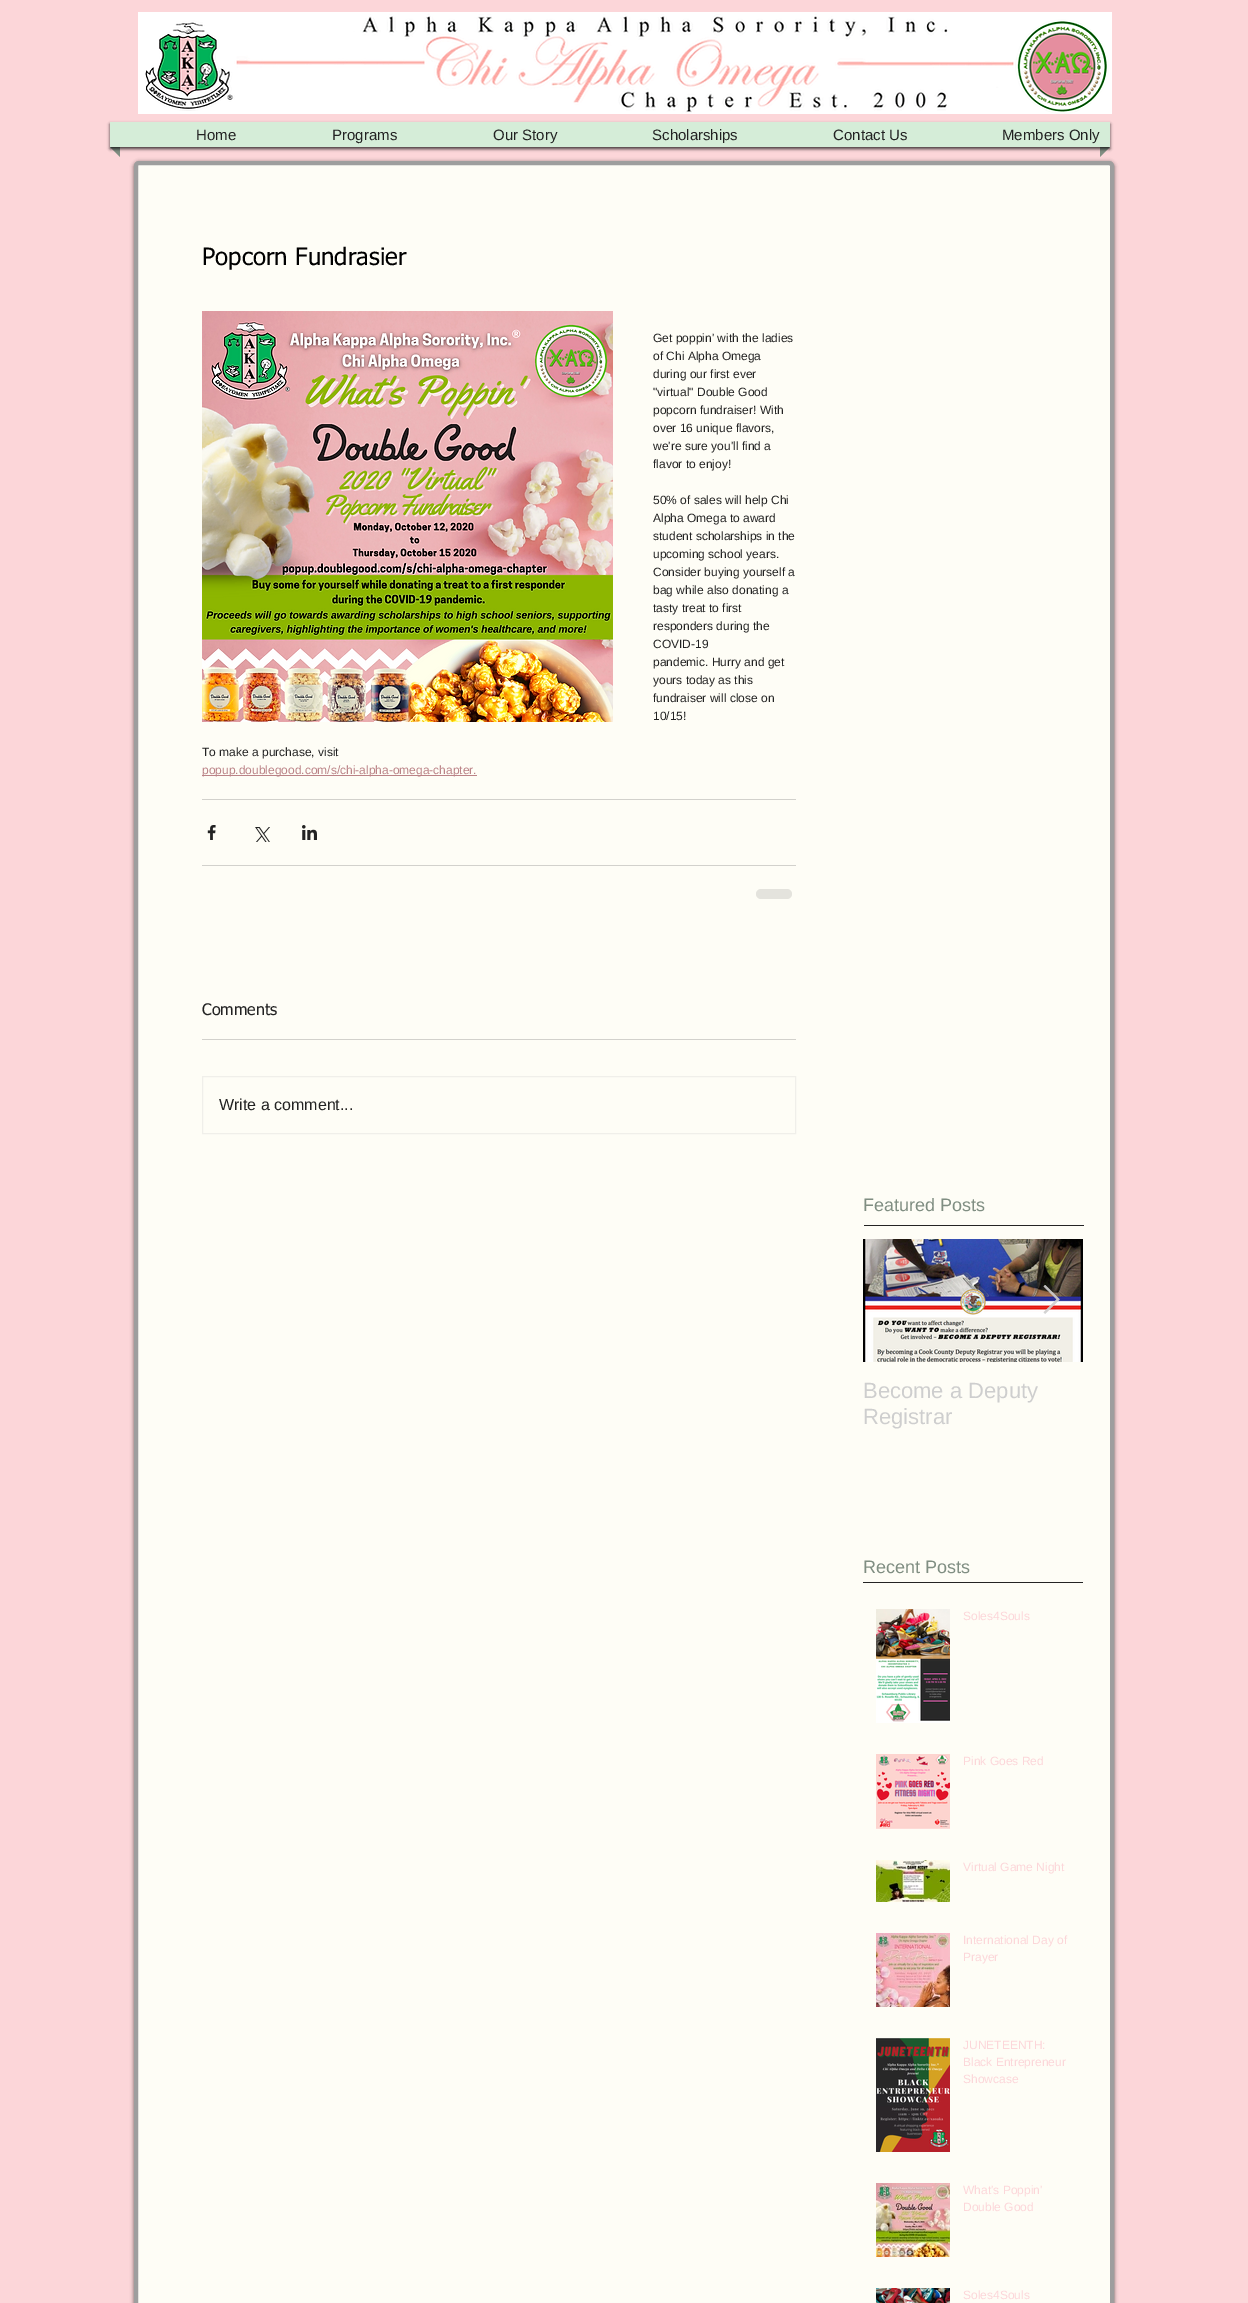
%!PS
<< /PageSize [1248 2303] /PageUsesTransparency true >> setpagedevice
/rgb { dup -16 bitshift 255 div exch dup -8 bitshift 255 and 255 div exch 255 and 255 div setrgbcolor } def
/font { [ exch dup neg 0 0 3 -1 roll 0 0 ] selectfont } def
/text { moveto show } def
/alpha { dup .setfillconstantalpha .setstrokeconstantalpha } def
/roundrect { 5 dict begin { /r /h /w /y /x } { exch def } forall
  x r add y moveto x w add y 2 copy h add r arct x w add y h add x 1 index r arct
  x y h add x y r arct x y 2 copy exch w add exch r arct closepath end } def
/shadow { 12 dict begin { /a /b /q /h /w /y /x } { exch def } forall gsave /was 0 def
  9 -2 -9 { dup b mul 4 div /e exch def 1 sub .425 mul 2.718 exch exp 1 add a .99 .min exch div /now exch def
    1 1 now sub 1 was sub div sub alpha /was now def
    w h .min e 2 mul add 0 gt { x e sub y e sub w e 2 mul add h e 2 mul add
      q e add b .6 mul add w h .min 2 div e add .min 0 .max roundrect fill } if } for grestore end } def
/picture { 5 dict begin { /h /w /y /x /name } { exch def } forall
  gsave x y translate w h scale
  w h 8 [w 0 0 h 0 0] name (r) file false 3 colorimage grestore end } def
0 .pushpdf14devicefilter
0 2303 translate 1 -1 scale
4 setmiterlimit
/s1 { /LiberationSans-Regular 15 font 16#222222 rgb } def
/s2 { /tahoma-Regular 24 font 16#000000 rgb } def
/s3 { /LiberationSans-Regular 12 font 16#222222 rgb } def
/s4 { /LiberationSans-Regular 12 font 16#BB8387 rgb } def
/s5 { /tahoma-Regular 16 font 16#222222 rgb } def
/s6 { /LiberationSans-Regular 16 font 16#222222 rgb } def
/s7 { /LiberationSans-Regular 18 font 16#808E82 rgb } def
/s8 { /LiberationSans-Regular 22 font 16#CECECE rgb } def
/s9 { /LiberationSans-Regular 12 font 16#FCD6D9 rgb } def
16#FCD6D9 rgb
0 0 1248 2303 rectfill
(pic1.raw) 138 12 974 102 picture
16#808E82 rgb
110 147 moveto 120 147 lineto 120 157 lineto closepath fill
1100 147 moveto 1110 147 lineto 1100 157 lineto closepath fill
16#000000 rgb
110 124 1000 25 0 1.5 0.7 shadow
16#D5EDD8 rgb
110 122 1000 25 rectfill
s1
(Home) 196 140 text
(Programs) 332 140 text
(Our Story) 493 140 text
(Scholarships) 652 140 text
(Contact Us) 833 140 text
(Members Only) 1002 140 text
16#000000 rgb
134 162 980 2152 5 2 0.6 shadow
16#FEFDF6 rgb
136 163 976 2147 3 roundrect gsave fill grestore
16#9E9E9E rgb
4 setlinewidth
stroke
s2
(Popcorn Fundrasier) 202 265 text
(pic2.raw) 202 311 411 411 picture
s3
(Get poppin' with the ladies) 653 342 text
(of Chi Alpha Omega) 653 360 text
(during our first ever) 653 378 text
("virtual" Double Good) 653 396 text
(popcorn fundraiser! With) 653 414 text
(over 16 unique flavors,) 653 432 text
(we're sure you'll find a) 653 450 text
(flavor to enjoy!) 653 468 text
(50% of sales will help Chi) 653 504 text
(Alpha Omega to award) 653 522 text
(student scholarships in the) 653 540 text
(upcoming school years.) 653 558 text
(Consider buying yourself a) 653 576 text
(bag while also donating a) 653 594 text
(tasty treat to first) 653 612 text
(responders during the) 653 630 text
(COVID-19) 653 648 text
(pandemic. Hurry and get) 653 666 text
(yours today as this) 653 684 text
(fundraiser will close on) 653 702 text
(10/15!) 653 720 text
(To make a purchase, visit) 202 756 text
16#BB8387 rgb
202 775 275 1 rectfill
(popup.doublegood.com/s/chi-alpha-omega-chapter.) 202 774 text
16#D2D1CC rgb
202 799 594 1 rectfill
(pic3.raw) 207 825 9 15 picture
(pic4.raw) 255 827 15 15 picture
(pic5.raw) 302 825 15 15 picture
202 865 594 1 rectfill
16#E4E3DD rgb
756 889 36 10 5 roundrect fill
s5
(Comments) 202 1015 text
16#D2D1CC rgb
202 1039 594 1 rectfill
16#F0EFEA rgb
1 setlinewidth
202.5 1076.5 593 57 rectstroke
s6
(Write a comment...) 219 1110 text
s7
(Featured Posts) 863 1211 text
16#242424 rgb
864 1225 220 1 rectfill
(pic7.raw) 863 1239 220 123 picture
(pic6.raw) 1043 1285 17 29 picture
s8
(Become a Deputy) 863 1398 text
(Registrar) 863 1424 text
s7
(Recent Posts) 863 1573 text
16#242424 rgb
863 1582 220 1 rectfill
(pic8.raw) 876 1609 74 114 picture
s9
(Soles4Souls) 963 1620 text
(pic9.raw) 876 1754 74 75 picture
(Pink Goes Red) 963 1765 text
(pic10.raw) 876 1860 74 42 picture
(Virtual Game Night) 963 1871 text
(pic11.raw) 876 1933 74 74 picture
(International Day of) 963 1944 text
(Prayer) 963 1961 text
(pic12.raw) 876 2038 74 114 picture
(JUNETEENTH:) 963 2049 text
(Black Entrepreneur) 963 2066 text
(Showcase) 963 2083 text
(pic13.raw) 876 2183 74 74 picture
(What's Poppin') 963 2194 text
(Double Good) 963 2211 text
(pic14.raw) 876 2288 74 15 picture
(Soles4Souls) 963 2299 text
.poppdf14devicefilter showpage
